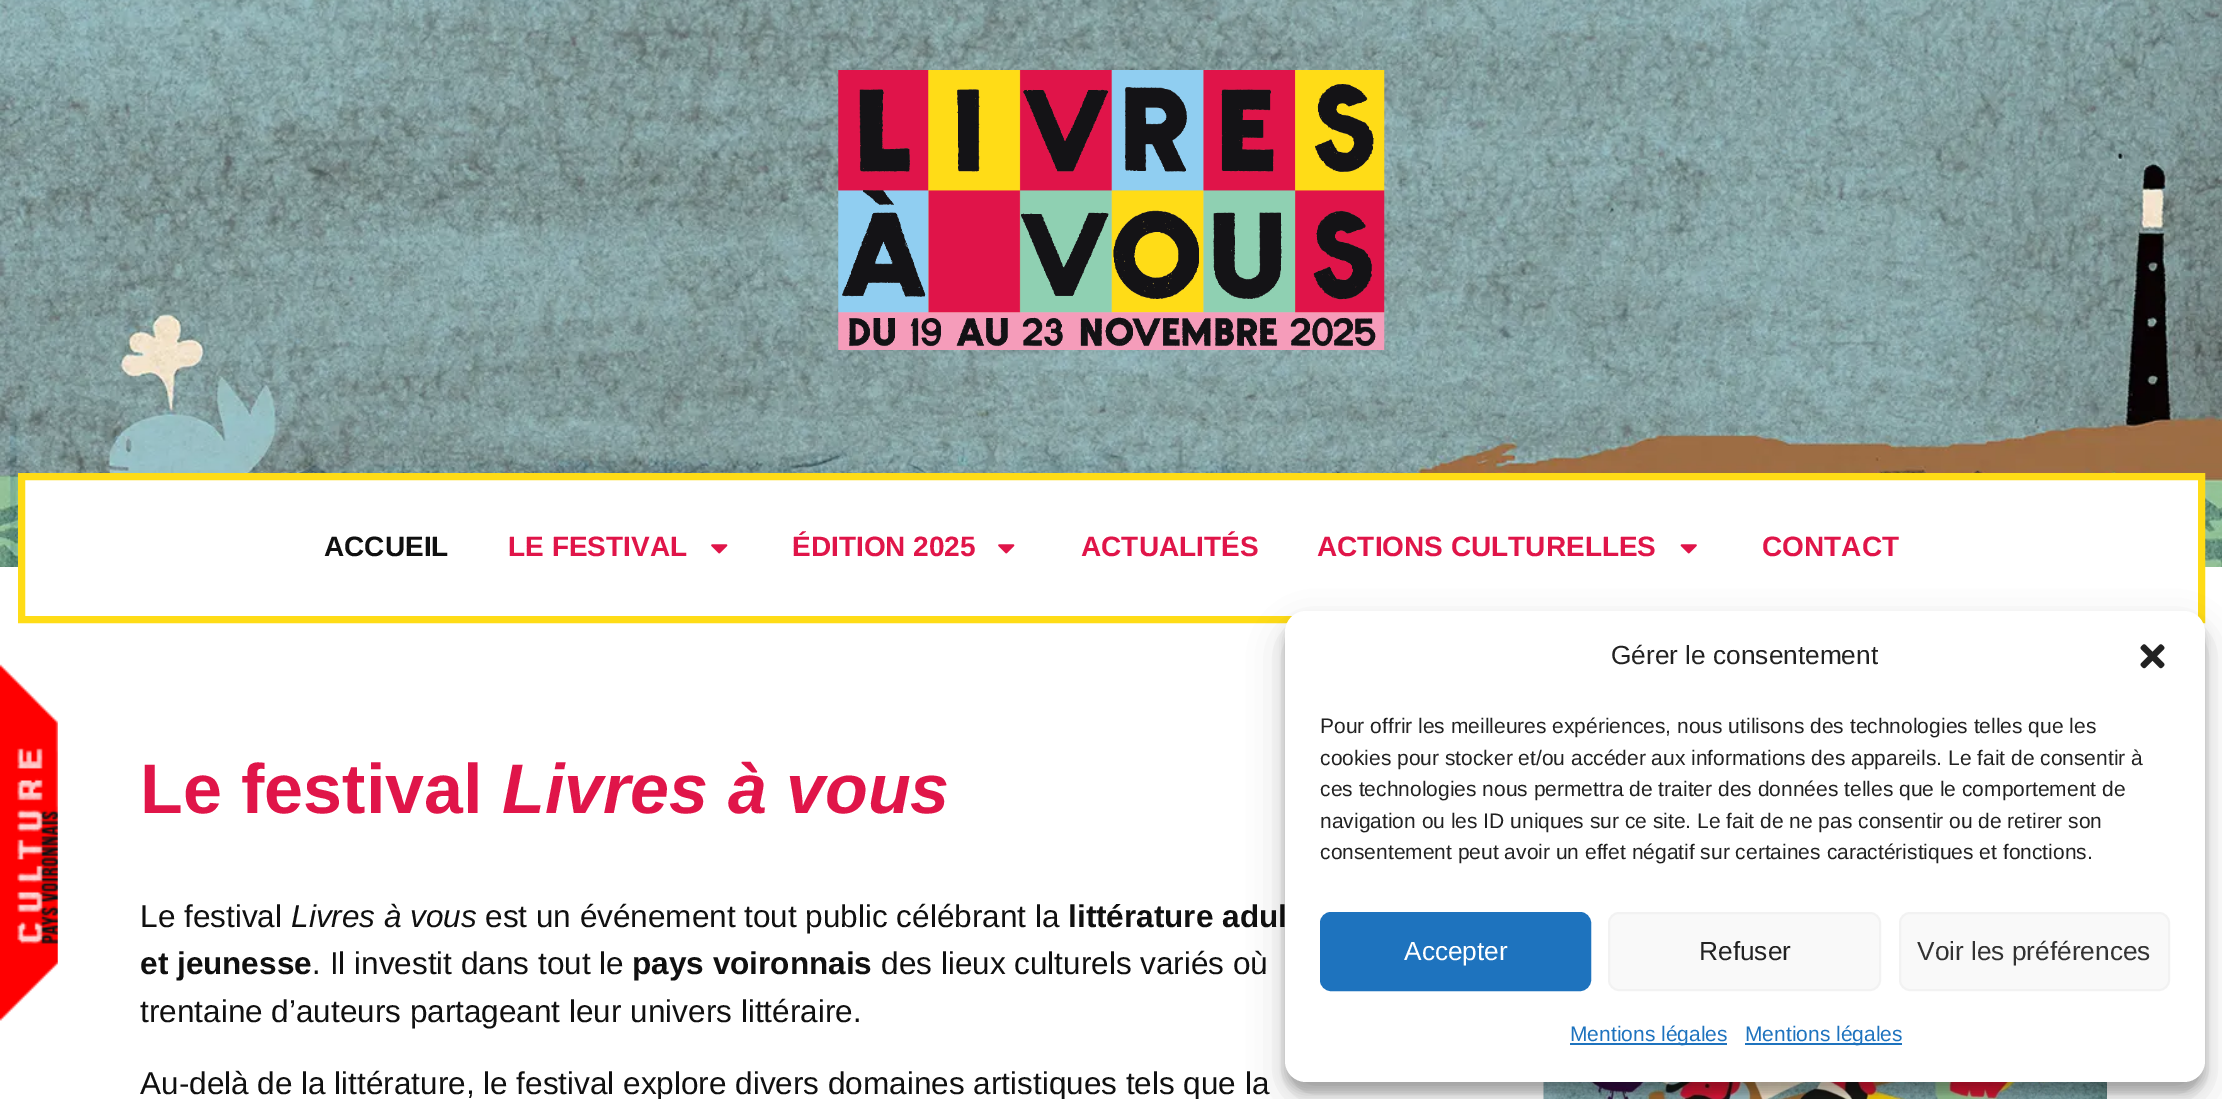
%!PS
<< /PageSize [2222 1099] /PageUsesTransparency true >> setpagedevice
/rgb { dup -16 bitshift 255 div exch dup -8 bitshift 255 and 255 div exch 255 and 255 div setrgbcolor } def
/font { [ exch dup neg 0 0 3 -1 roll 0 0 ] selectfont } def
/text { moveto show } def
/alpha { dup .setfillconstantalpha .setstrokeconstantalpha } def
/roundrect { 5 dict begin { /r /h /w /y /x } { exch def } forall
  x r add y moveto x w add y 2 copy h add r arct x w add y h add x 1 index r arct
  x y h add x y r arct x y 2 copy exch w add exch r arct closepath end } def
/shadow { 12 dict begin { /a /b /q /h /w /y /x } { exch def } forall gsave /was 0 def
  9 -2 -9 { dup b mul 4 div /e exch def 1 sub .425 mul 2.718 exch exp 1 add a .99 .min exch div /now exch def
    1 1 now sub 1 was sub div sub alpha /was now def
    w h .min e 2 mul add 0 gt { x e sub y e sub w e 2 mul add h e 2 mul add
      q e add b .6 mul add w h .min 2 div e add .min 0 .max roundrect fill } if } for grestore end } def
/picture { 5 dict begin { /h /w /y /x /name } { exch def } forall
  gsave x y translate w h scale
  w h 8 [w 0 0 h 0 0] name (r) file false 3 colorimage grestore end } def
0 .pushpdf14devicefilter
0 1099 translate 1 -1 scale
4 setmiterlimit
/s1 { /LiberationSans-Bold 28 font 16#101010 rgb } def
/s2 { /LiberationSans-Bold 28 font 16#E01549 rgb } def
/s3 { /LiberationSans-Bold 70 font 16#E01549 rgb } def
/s4 { /LiberationSans-BoldItalic 70 font 16#E01549 rgb } def
/s5 { /LiberationSans-Regular 31.5 font 16#101010 rgb } def
/s6 { /LiberationSans-Italic 31.5 font 16#101010 rgb } def
/s7 { /LiberationSans-Bold 31.5 font 16#101010 rgb } def
/s8 { /LiberationSans-Regular 26.25 font 16#222222 rgb } def
/s9 { /LiberationSans-Regular 21 font 16#222222 rgb } def
/s10 { /LiberationSans-Regular 26.25 font 16#FFFFFF rgb } def
/s11 { /LiberationSans-Regular 26.25 font 16#333333 rgb } def
/s12 { /LiberationSans-Regular 21 font 16#1E73BE rgb } def
16#FFFFFF rgb
0 0 2222 1099 rectfill
(pic1.raw) 0 0 2222 567 picture
(pic2.raw) 838 70 547 280 picture
25 480 2173 87 rectfill
16#FFDC16 rgb
7 setlinewidth
21.5 476.5 2180 143 rectstroke
s1
(ACCUEIL) 324 556 text
s2
(LE FESTIVAL) 508 556 text
(pic3.raw) 711 544 17 10 picture
(ÉDITION 2025) 792 556 text
(pic3.raw) 998 544 17 10 picture
(ACTUALITÉS) 1081 556 text
(ACTIONS CULTURELLES) 1317 556 text
(pic4.raw) 1680 544 17 10 picture
(CONTACT) 1762 556 text
(pic5.raw) 0 664 58 357 picture
s3
(Le festival) 140 813 text
s4
(Livres à vous) 502 813 text
s5
(Le festival) 140 927 text
s6
(Livres à vous) 291 927 text
s5
(est un événement tout public célébrant la) 485 927 text
s7
(littérature adul) 1068 927 text
(et jeunesse) 140 974 text
s5
(. Il investit dans tout le) 312 974 text
s7
(pays voironnais) 632 974 text
s5
(des lieux culturels variés où) 881 974 text
(trentaine d’auteurs partageant leur univers littéraire.) 140 1022 text
(Au-delà de la littérature, le festival explore divers domaines artistiques tels que la) 140 1094 text
(pic6.raw) 1543 1082 564 17 picture
16#000000 rgb
1285 621 920 471 21 5 0.23 shadow
1285 628 920 471 21 17.5 0.19 shadow
16#FFFFFF rgb
1285 611 920 471 21 roundrect fill
s8
(Gérer le consentement) 1611 664 text
(pic7.raw) 2140 644 25 25 picture
s9
(Pour offrir les meilleures expériences, nous utilisons des technologies telles que les) 1320 733 text
(cookies pour stocker et/ou accéder aux informations des appareils. Le fait de consentir à) 1320 765 text
(ces technologies nous permettra de traiter des données telles que le comportement de) 1320 796 text
(navigation ou les ID uniques sur ce site. Le fait de ne pas consentir ou de retirer son) 1320 828 text
(consentement peut avoir un effet négatif sur certaines caractéristiques et fonctions.) 1320 859 text
16#1E73BE rgb
1321 913 269 77 10 roundrect gsave fill grestore
2 setlinewidth
stroke
s10
(Accepter) 1404 960 text
16#F9F9F9 rgb
1609 913 271 77 10 roundrect gsave fill grestore
16#F2F2F2 rgb
stroke
s8
(Refuser) 1699 960 text
16#F9F9F9 rgb
1900 913 269 77 10 roundrect gsave fill grestore
16#F2F2F2 rgb
stroke
s11
(Voir les préférences) 1917 960 text
16#1E73BE rgb
1570 1043 157 2 rectfill
s12
(Mentions légales) 1570 1041 text
1745 1043 157 2 rectfill
(Mentions légales) 1745 1041 text
.poppdf14devicefilter showpage
